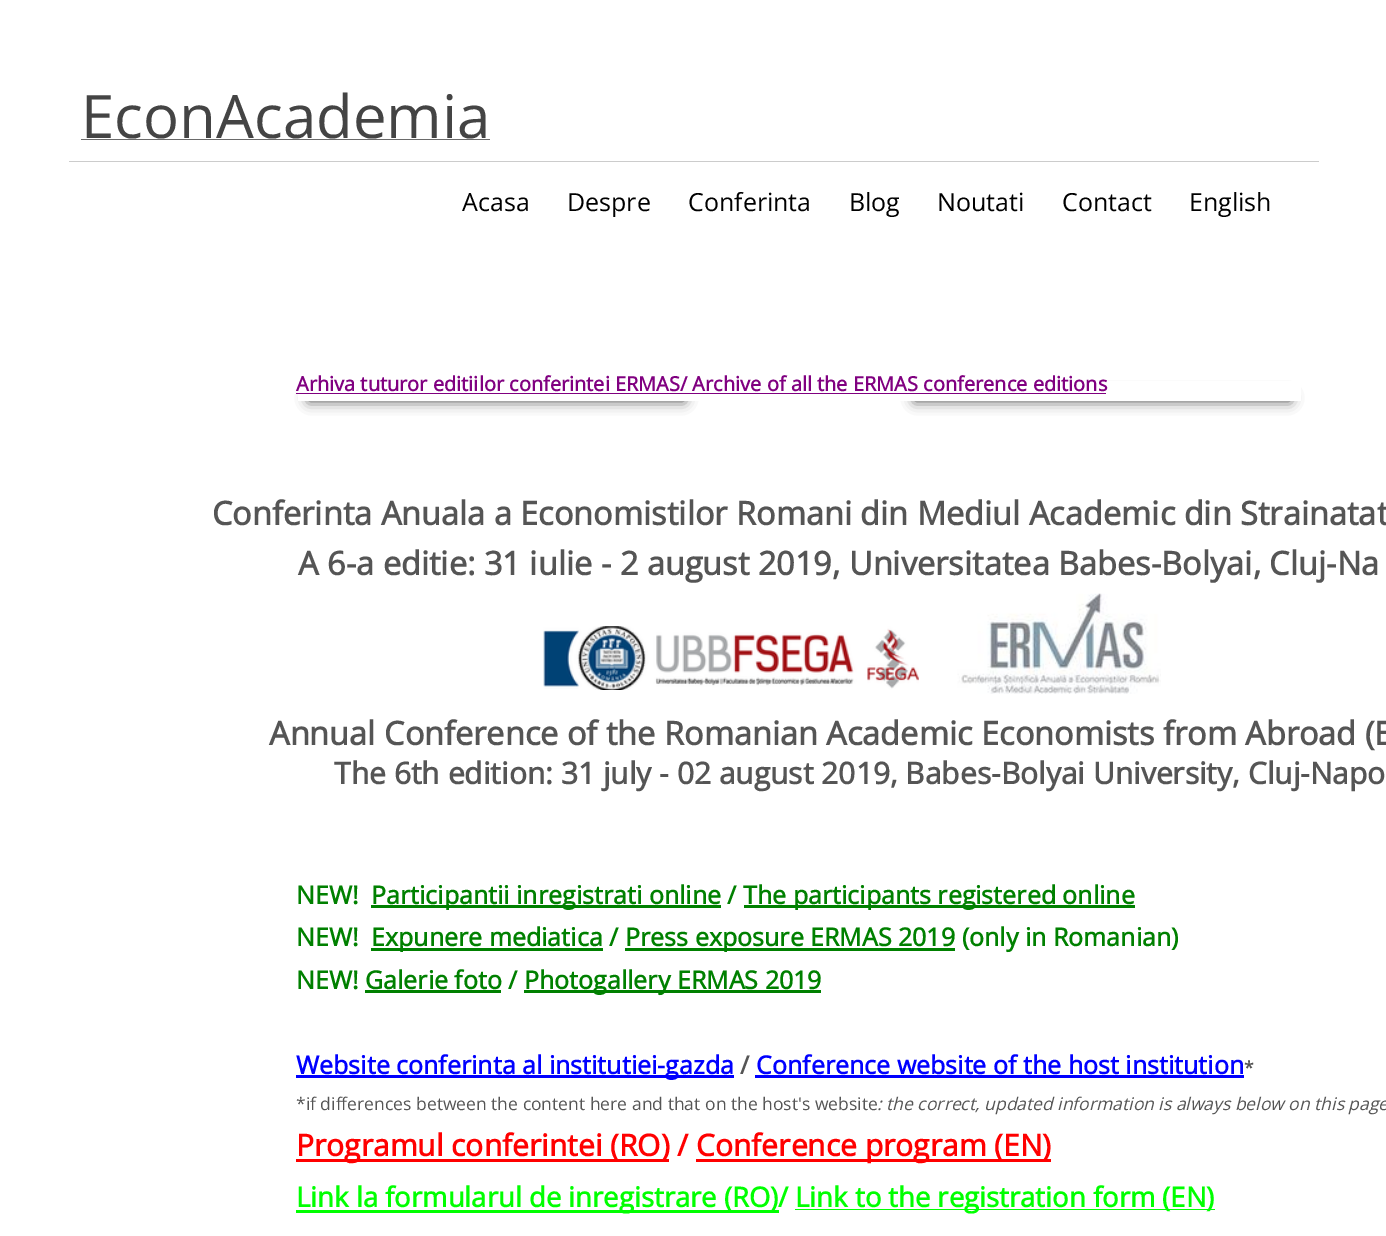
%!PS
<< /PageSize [1386 1236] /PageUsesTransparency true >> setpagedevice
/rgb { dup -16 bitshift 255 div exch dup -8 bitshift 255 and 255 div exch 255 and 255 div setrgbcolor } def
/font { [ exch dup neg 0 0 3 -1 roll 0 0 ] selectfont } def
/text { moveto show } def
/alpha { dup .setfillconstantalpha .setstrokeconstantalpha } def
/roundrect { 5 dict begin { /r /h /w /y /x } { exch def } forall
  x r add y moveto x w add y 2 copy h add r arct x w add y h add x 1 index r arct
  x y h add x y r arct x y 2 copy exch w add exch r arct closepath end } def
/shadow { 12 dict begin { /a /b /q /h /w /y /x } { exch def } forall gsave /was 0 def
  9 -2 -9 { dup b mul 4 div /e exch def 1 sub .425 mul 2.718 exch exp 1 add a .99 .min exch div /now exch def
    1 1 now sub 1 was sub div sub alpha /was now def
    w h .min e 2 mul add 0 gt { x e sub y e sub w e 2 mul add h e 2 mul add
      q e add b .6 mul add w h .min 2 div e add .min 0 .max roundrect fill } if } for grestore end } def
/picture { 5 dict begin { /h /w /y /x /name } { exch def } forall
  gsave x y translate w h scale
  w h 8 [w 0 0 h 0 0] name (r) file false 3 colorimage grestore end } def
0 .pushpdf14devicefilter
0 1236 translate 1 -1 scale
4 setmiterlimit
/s1 { /OpenSans-Regular 60 font 16#444444 rgb } def
/s2 { /OpenSans-Regular 25 font 16#000000 rgb } def
/s3 { /OpenSans-Bold 20 font 16#800080 rgb } def
/s4 { /OpenSans-Bold 32.5 font 16#555555 rgb } def
/s5 { /OpenSans-Bold 30 font 16#555555 rgb } def
/s6 { /OpenSans-Bold 25 font 16#008000 rgb } def
/s7 { /OpenSans-Bold 25 font 16#0000FF rgb } def
/s8 { /OpenSans-Bold 25 font 16#555555 rgb } def
/s9 { /OpenSans-Bold 17.5 font 16#555555 rgb } def
/s10 { /OpenSans-Regular 17.5 font 16#555555 rgb } def
/s11 { /OpenSans-Italic 17.5 font 16#555555 rgb } def
/s12 { /OpenSans-Bold 30 font 16#FF0000 rgb } def
/s13 { /OpenSans-Bold 27.5 font 16#00FF00 rgb } def
16#FFFFFF rgb
0 0 1386 1236 rectfill
s1
(EconAcademia) 81 138 text
16#6A6A6A rgb
81 139 409 1 rectfill
16#CCCCCC rgb
69 161 1250 1 rectfill
s2
(Acasa) 462 211 text
(Despre) 567 211 text
(Conferinta) 688 211 text
(Blog) 849 211 text
(Noutati) 937 211 text
(Contact) 1062 211 text
(English) 1189 211 text
309 395 375 6 0 6.5 0.7 shadow
915 395 375 6 0 6.5 0.7 shadow
16#FFFFFF rgb
298 381 1003 20 rectfill
s3
(Arhiva tuturor editiilor conferintei ERMAS/ Archive of all the ERMAS conference editions) 296 391 text
296 393 810 1 rectfill
s4
(Conferinta Anuala a Economistilor Romani din Mediul Academic din Strainatat) 212 525 text
(A 6-a editie: 31 iulie - 2 august 2019, Universitatea Babes-Bolyai, Cluj-Na) 298 575 text
(Annual Conference of the Romanian Academic Economists from Abroad \(E) 269 745 text
s5
(The 6th edition: 31 july - 02 august 2019, Babes-Bolyai University, Cluj-Napo) 334 784 text
(pic1.raw) 543 626 376 64 picture
(pic2.raw) 957 593 204 101 picture
s6
(NEW!) 296 904 text
371 905 350 3 rectfill
(Participantii inregistrati online /) 371 904 text
744 905 391 3 rectfill
(The participants registered online) 743 904 text
(NEW!) 296 946 text
371 948 232 3 rectfill
(Expunere mediatica /) 371 946 text
625 948 330 3 rectfill
(Press exposure ERMAS 2019 \(only in Romanian\)) 625 946 text
(NEW! Galerie foto /) 296 989 text
365 990 136 3 rectfill
524 990 297 3 rectfill
(Photogallery ERMAS 2019) 524 989 text
16#0000FF rgb
296 1075 438 3 rectfill
(Website conferinta al institutiei-gazda) 296 1074 text
s8
(/) 740 1074 text
s7
(Conference website of the host institution) 756 1074 text
755 1075 489 3 rectfill
s9
(*) 1244 1074 text
s10
(*if differences between the content here and that on the host's website) 296 1110 text
s11
(: the correct, updated information is always below on this page) 877 1110 text
16#FF0000 rgb
296 1159 373 3 rectfill
s12
(Programul conferintei \(RO\) /) 296 1156 text
696 1159 355 3 rectfill
(Conference program \(EN\)) 696 1156 text
16#00FF00 rgb
296 1210 483 3 rectfill
s13
(Link la formularul de inregistrare \(RO\)/) 296 1207 text
795 1209 420 1 rectfill
(Link to the registration form \(EN\)) 795 1207 text
.poppdf14devicefilter showpage
